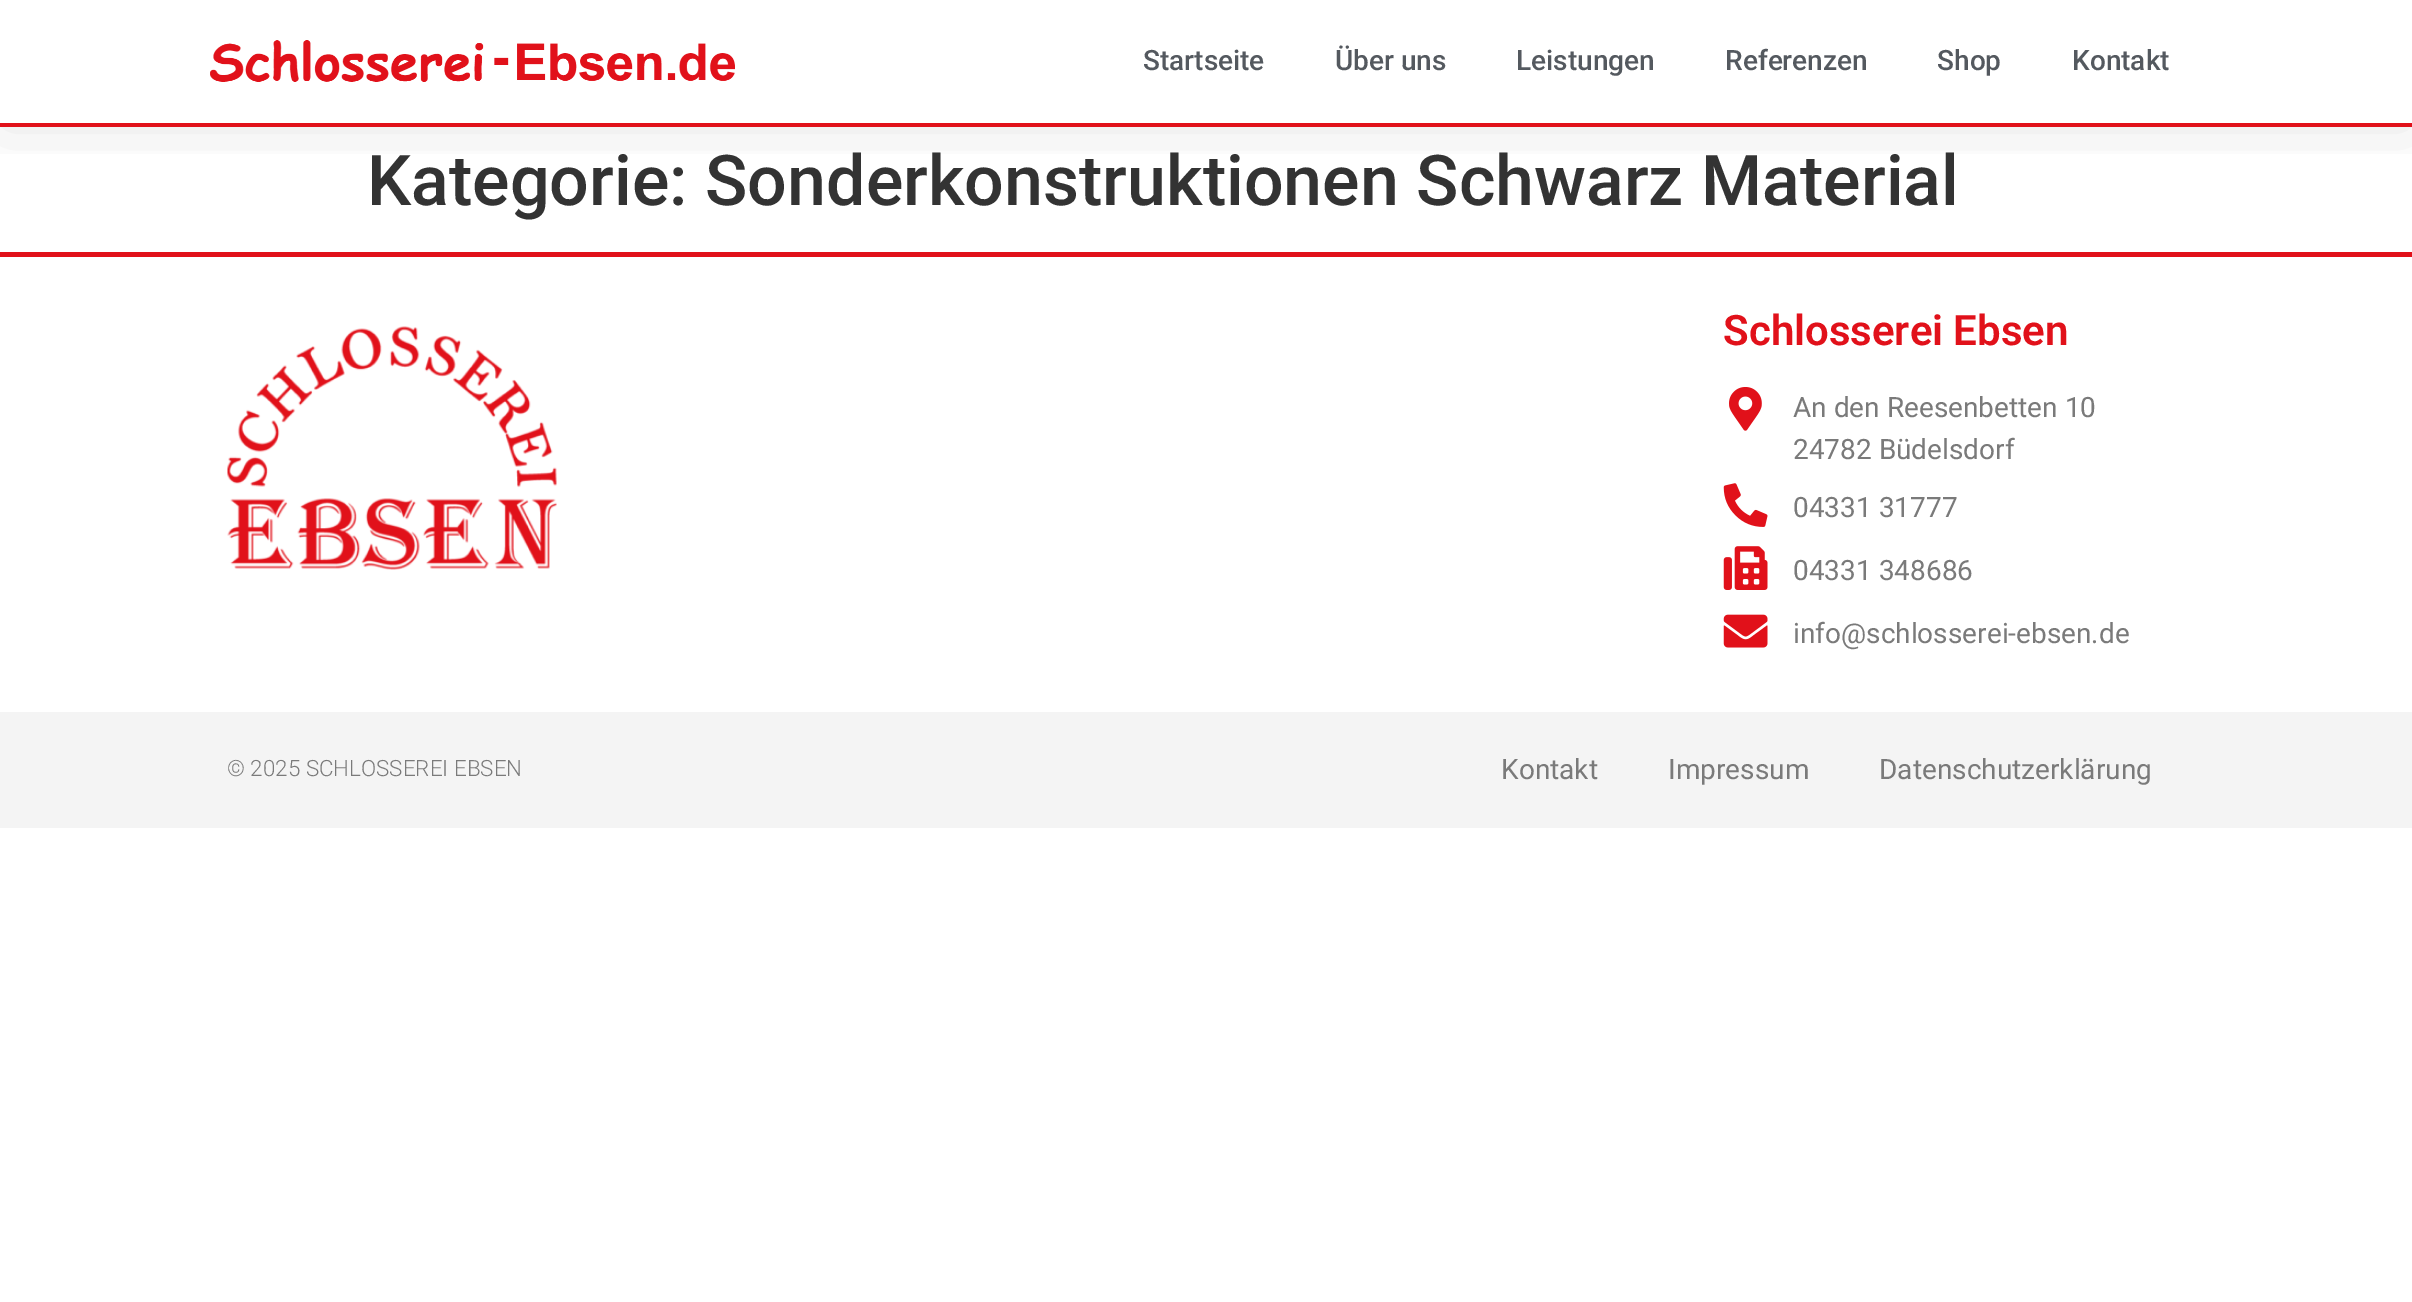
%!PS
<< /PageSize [2412 1302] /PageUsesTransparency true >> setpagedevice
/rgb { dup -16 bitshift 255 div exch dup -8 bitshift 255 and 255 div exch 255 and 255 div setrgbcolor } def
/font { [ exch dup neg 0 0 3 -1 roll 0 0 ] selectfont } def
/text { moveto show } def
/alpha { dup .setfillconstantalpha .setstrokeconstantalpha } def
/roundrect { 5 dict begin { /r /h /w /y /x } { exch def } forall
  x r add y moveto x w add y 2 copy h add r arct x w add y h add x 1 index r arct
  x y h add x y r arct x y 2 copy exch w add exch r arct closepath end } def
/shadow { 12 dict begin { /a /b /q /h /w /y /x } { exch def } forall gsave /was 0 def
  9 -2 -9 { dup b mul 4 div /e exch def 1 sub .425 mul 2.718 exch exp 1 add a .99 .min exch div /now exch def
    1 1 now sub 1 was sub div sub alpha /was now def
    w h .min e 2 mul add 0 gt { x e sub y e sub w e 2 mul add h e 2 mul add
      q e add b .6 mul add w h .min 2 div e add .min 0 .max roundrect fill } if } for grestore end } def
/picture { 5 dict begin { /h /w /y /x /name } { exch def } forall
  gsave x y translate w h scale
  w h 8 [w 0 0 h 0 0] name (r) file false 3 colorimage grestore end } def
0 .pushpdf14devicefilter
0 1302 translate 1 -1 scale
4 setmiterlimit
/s1 { /Roboto-Medium 28 font 16#54595F rgb } def
/s2 { /Roboto-Medium 70 font 16#333333 rgb } def
/s3 { /Roboto-SemiBold 42 font 16#E1111A rgb } def
/s4 { /Roboto-Regular 28 font 16#7A7A7A rgb } def
/s5 { /Roboto-Light 22.4 font 16#7A7A7A rgb } def
16#FFFFFF rgb
0 0 2412 1302 rectfill
gsave
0 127 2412 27 rectclip
16#000000 rgb
0 0 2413 126 0 33 0.1 shadow
grestore
16#E1111A rgb
0 123 2412 4 rectfill
(pic1.raw) 210 40 525 42 picture
s1
(Startseite) 1143 70 text
(Über uns) 1335 70 text
(Leistungen) 1516 70 text
(Referenzen) 1725 70 text
(Shop) 1937 70 text
(Kontakt) 2072 70 text
s2
(Kategorie: Sonderkonstruktionen Schwarz Material) 367 205 text
16#E1111A rgb
0 252 2412 5 rectfill
(pic2.raw) 227 326 330 244 picture
s3
(Schlosserei Ebsen) 1723 345 text
(pic3.raw) 1729 387 33 44 picture
s4
(An den Reesenbetten 10) 1793 417 text
(24782 Büdelsdorf) 1793 459 text
(pic4.raw) 1723 483 45 44 picture
(04331 31777) 1793 517 text
(pic5.raw) 1723 546 45 44 picture
(04331 348686) 1793 580 text
(pic6.raw) 1723 614 45 34 picture
(info@schlosserei-ebsen.de) 1793 643 text
16#F4F4F4 rgb
0 712 2412 116 rectfill
s5
(© 2025 SCHLOSSEREI EBSEN) 227 776 text
s4
(Kontakt) 1501 779 text
(Impressum) 1668 779 text
(Datenschutzerklärung) 1879 779 text
.poppdf14devicefilter showpage
